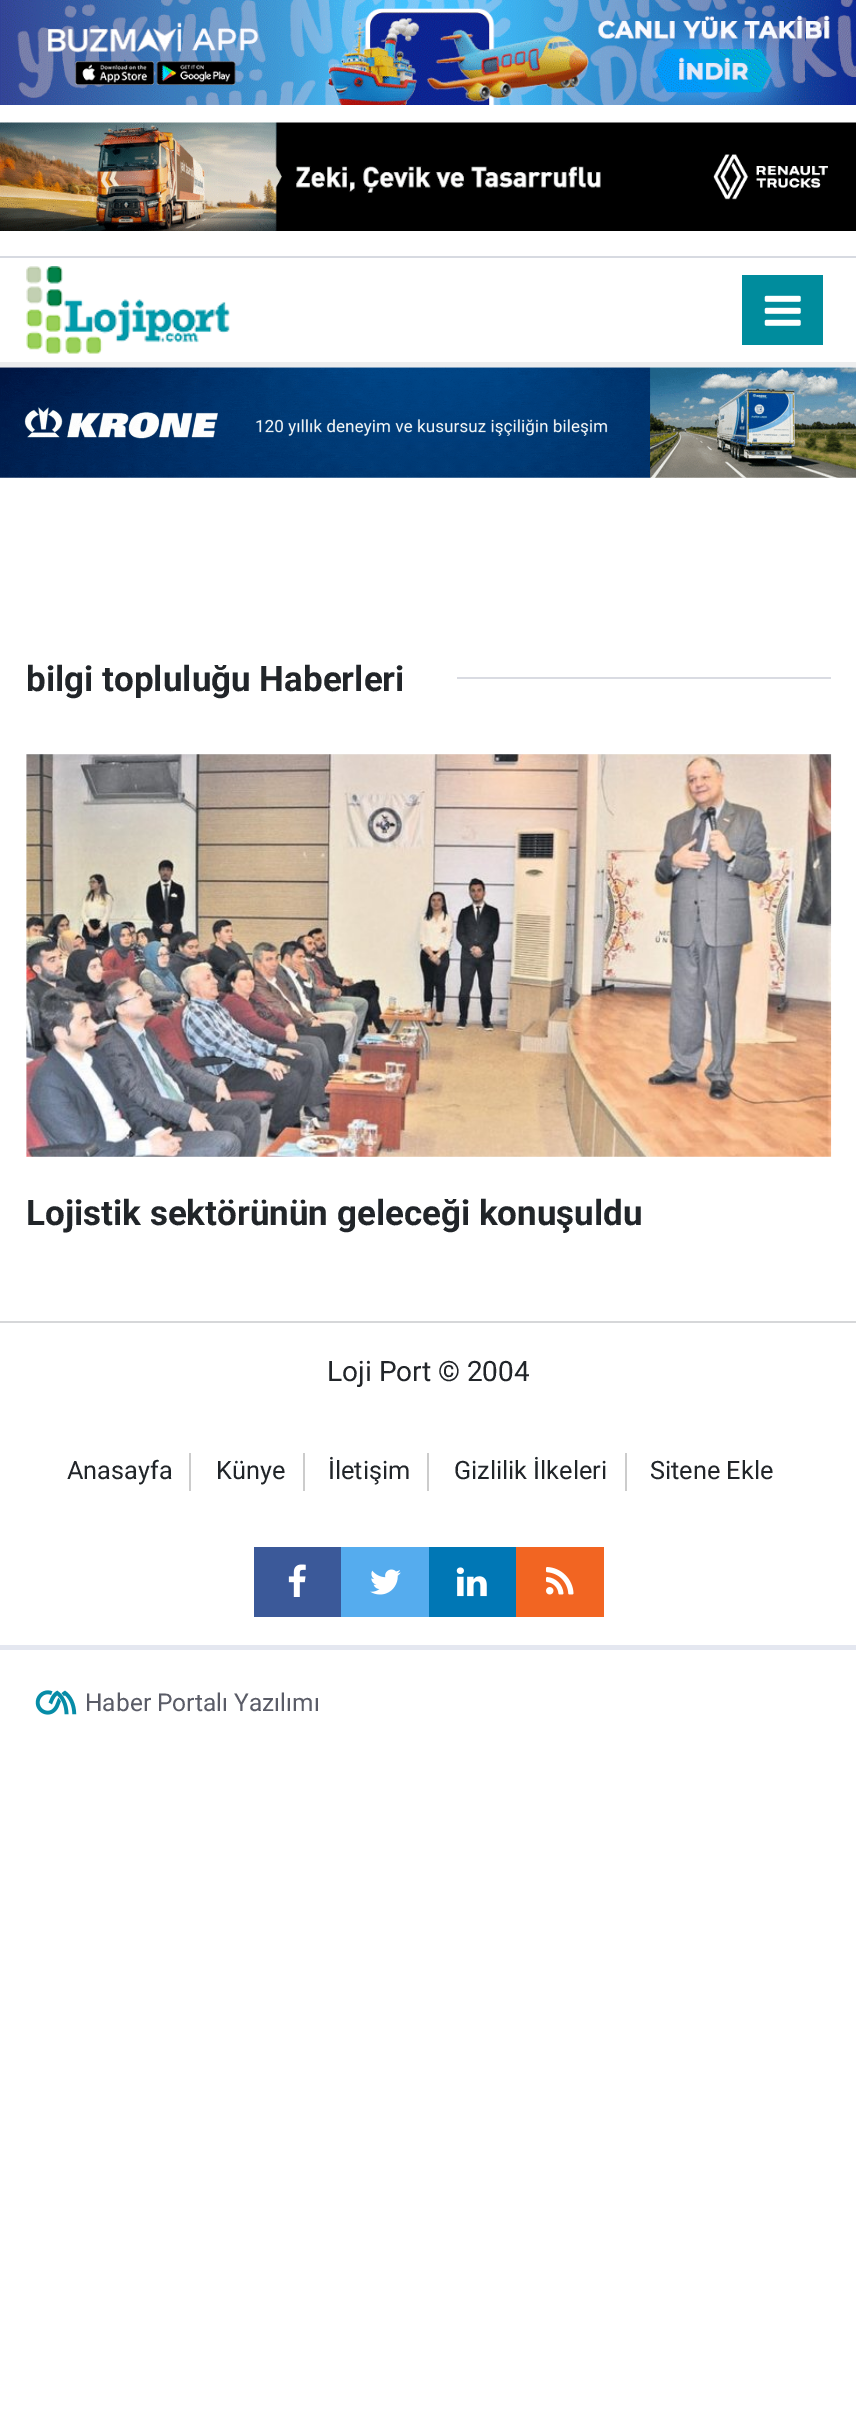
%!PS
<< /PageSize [856 2426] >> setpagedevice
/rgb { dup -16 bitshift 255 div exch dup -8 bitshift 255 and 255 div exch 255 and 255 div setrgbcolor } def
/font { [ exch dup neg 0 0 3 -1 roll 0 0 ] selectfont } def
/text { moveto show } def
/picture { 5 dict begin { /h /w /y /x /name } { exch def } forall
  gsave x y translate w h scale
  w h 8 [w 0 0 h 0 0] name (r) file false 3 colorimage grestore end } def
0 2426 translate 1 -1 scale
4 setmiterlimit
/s1 { /Roboto-Bold 35 font 16#212529 rgb } def
/s2 { /Roboto-Regular 28 font 16#212529 rgb } def
/s3 { /Roboto-Regular 25.25 font 16#212529 rgb } def
/s4 { /Roboto-Regular 24.5 font 16#5A5C67 rgb } def
16#FFFFFF rgb
0 0 856 2426 rectfill
(pic1.raw) 0 0 856 105 picture
(pic2.raw) 0 122 856 109 picture
16#D7DAE1 rgb
0 256 856 2 rectfill
16#ECEDEE rgb
0 362 856 5 rectfill
(pic3.raw) 26 266 204 88 picture
16#008C9D rgb
742 275 81 70 rectfill
(pic4.raw) 764 295 37 31 picture
(pic5.raw) 0 367 856 111 picture
s1
(bilgi topluluğu Haberleri) 26 691 text
16#D9DBE2 rgb
457 677 374 2 rectfill
16#F8F8F8 rgb
26 754 805 403 rectfill
(pic6.raw) 26 754 806 403 picture
s1
(Lojistik sektörünün geleceği konuşuldu) 26 1225 text
16#D6D7D9 rgb
0 1321 856 2 rectfill
16#E4E7F0 rgb
0 1645 856 5 rectfill
s2
(Loji Port © 2004) 327 1381 text
16#CCCCCC rgb
189 1453 2 38 rectfill
s3
(Anasayfa) 67 1479 text
16#CCCCCC rgb
303 1453 2 38 rectfill
s3
(Künye) 216 1479 text
16#CCCCCC rgb
427 1453 2 38 rectfill
s3
(İletişim) 328 1479 text
16#CCCCCC rgb
625 1453 2 38 rectfill
s3
(Gizlilik İlkeleri) 454 1479 text
(Sitene Ekle) 650 1479 text
16#3B5999 rgb
254 1547 87 70 rectfill
(pic7.raw) 288 1564 18 33 picture
16#55ACEE rgb
341 1547 88 70 rectfill
(pic8.raw) 370 1569 31 26 picture
16#0077B5 rgb
429 1547 87 70 rectfill
(pic9.raw) 456 1567 31 30 picture
16#F26522 rgb
516 1547 88 70 rectfill
(pic10.raw) 546 1567 28 28 picture
(pic11.raw) 35 1690 42 25 picture
s4
(Haber Portalı Yazılımı) 85 1711 text
showpage
